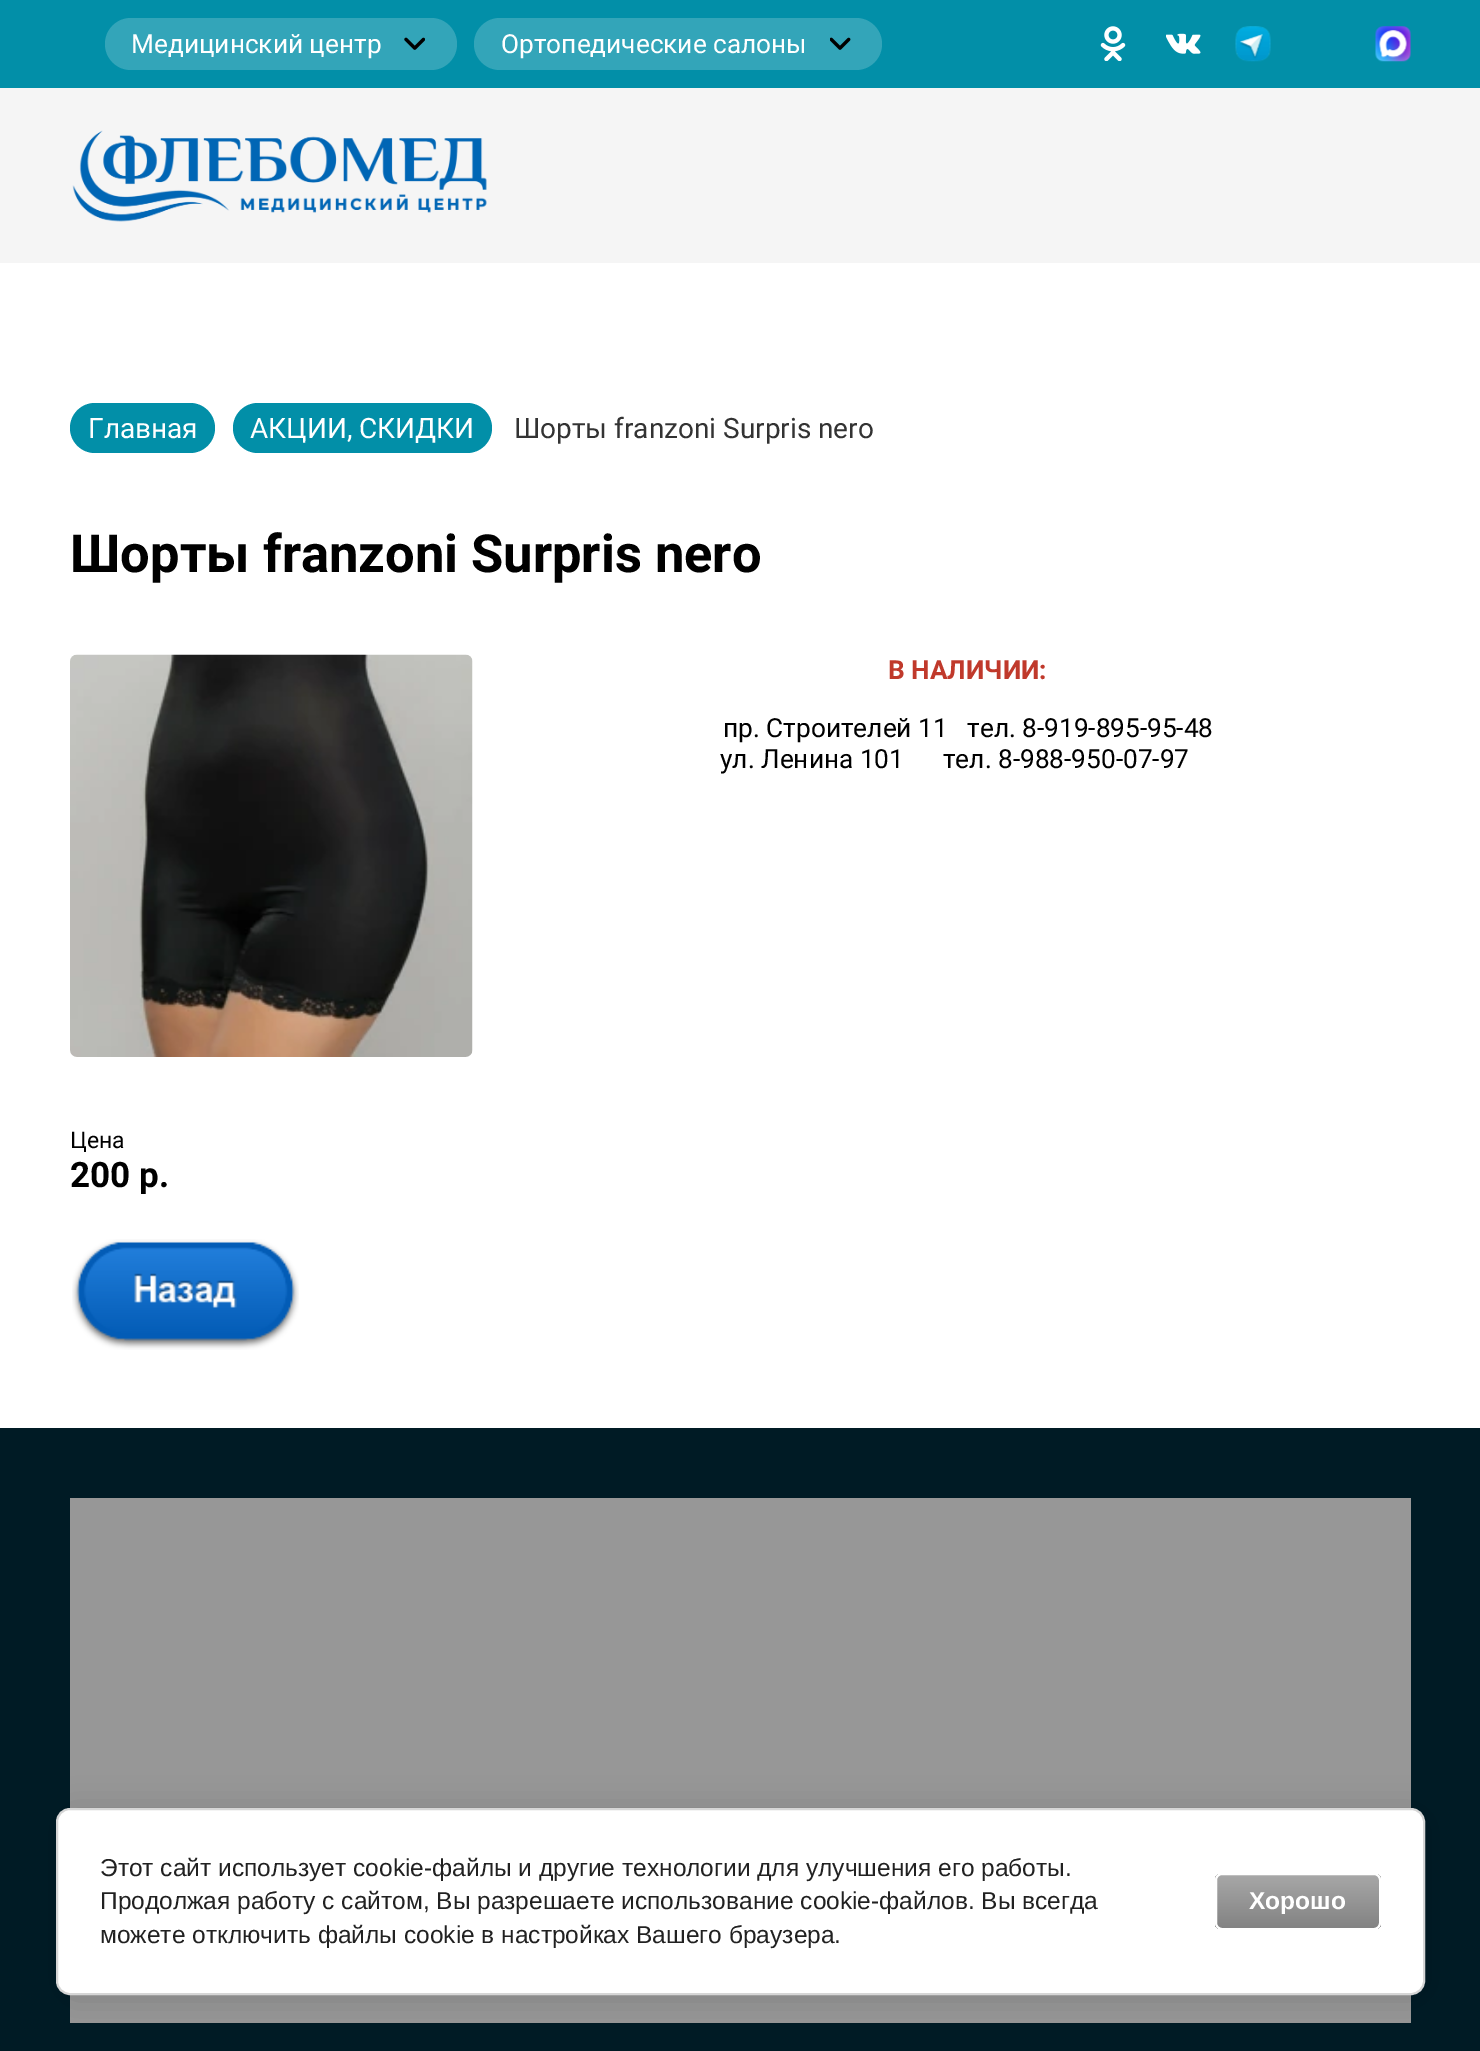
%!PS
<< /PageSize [1480 2051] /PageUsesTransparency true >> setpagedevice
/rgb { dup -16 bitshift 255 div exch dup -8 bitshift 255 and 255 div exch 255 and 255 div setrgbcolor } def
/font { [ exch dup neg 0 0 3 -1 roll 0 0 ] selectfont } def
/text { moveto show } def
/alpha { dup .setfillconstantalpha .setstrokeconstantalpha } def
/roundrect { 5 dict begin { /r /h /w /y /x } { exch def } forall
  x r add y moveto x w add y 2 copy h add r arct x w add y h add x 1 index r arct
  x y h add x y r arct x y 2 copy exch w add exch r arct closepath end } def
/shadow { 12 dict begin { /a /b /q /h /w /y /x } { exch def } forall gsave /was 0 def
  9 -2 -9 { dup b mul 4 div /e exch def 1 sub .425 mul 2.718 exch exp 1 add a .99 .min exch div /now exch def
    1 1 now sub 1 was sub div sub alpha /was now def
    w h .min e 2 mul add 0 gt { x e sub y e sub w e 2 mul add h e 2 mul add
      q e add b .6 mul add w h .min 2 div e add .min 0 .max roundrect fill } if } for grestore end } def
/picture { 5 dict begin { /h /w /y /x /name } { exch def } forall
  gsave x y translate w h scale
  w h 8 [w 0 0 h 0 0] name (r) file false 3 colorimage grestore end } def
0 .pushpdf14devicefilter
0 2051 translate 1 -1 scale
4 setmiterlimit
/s1 { /Roboto-Regular 26.25 font 16#FFFFFF rgb } def
/s2 { /Roboto-Regular 28 font 16#FFFFFF rgb } def
/s3 { /Roboto-Regular 28 font 16#333333 rgb } def
/s4 { /Roboto-Bold 52.5 font 16#000000 rgb } def
/s5 { /Roboto-Bold 26.25 font 16#C0392B rgb } def
/s6 { /Roboto-Regular 26.25 font 16#000000 rgb } def
/s7 { /Roboto-Regular 23 font 16#000000 rgb } def
/s8 { /Roboto-Bold 35 font 16#000000 rgb } def
/s9 { /LiberationSans-Regular 24.5 font 16#212121 rgb } def
/s10 { /LiberationSans-Bold 24.5 font 16#FFFFFF rgb } def
16#F5F5F5 rgb
0 0 1480 2051 rectfill
16#028FA8 rgb
0 0 1480 88 rectfill
16#33A5B9 rgb
105 18 352 52 26 roundrect fill
s1
(Медицинский центр) 131 53 text
(pic1.raw) 404 37 21 13 picture
16#33A5B9 rgb
474 18 408 52 26 roundrect fill
s1
(Ортопедические салоны) 501 53 text
(pic2.raw) 830 37 21 13 picture
(pic3.raw) 1100 26 26 35 picture
(pic4.raw) 1166 33 35 21 picture
(pic5.raw) 1235 26 36 36 picture
(pic6.raw) 1375 26 36 36 picture
(pic7.raw) 72 130 415 92 picture
0 263 1480 1165 rectfill
16#028FA8 rgb
70 403 145 50 25 roundrect fill
s2
(Главная) 88 438 text
16#028FA8 rgb
233 403 259 50 25 roundrect fill
s2
(АКЦИИ, СКИДКИ) 250 438 text
s3
(Шорты franzoni Surpris nero) 514 438 text
s4
(Шорты franzoni Surpris nero) 70 572 text
(pic8.raw) 70 654 403 403 picture
s5
(В НАЛИЧИИ:) 888 679 text
s6
(пр. Строителей 11   тел. 8-919-895-95-48) 723 737 text
(ул. Ленина 101      тел. 8-988-950-07-97) 720 768 text
s7
(Цена) 70 1148 text
s8
(200 р.) 70 1187 text
(pic9.raw) 72 1239 227 111 picture
16#001B25 rgb
0 1428 1480 623 rectfill
16#979797 rgb
70 1498 1341 525 rectfill
16#000000 rgb
60 1811 1368 188 14 16 0.14 shadow
16#FFFFFF rgb
57 1809 1367 185 13 roundrect gsave fill grestore
16#D6D6D6 rgb
2 setlinewidth
stroke
s9
(Этот сайт использует cookie-файлы и другие технологии для улучшения его работы.) 100 1876 text
(Продолжая работу с сайтом, Вы разрешаете использование cookie-файлов. Вы всегда) 100 1909 text
(можете отключить файлы cookie в настройках Вашего браузера.) 100 1943 text
gsave
1215 1873 166 57 7 roundrect clip newpath
gsave 1215 1874 moveto 1381 1874 lineto 1381 1929 lineto 1215 1929 lineto closepath clip newpath
<< /ShadingType 2 /ColorSpace /DeviceRGB /Coords [1298 1874 1298 1929] /Extend [true true] /Function << /FunctionType 2 /Domain [0 1] /C0 [0.659 0.659 0.659] /C1 [0.51 0.51 0.51] /N 1 >> >> shfill grestore
grestore
16#FFFFFF rgb
1216 1874 164 55 6 roundrect stroke
s10
(Хорошо) 1249 1909 text
.poppdf14devicefilter showpage
